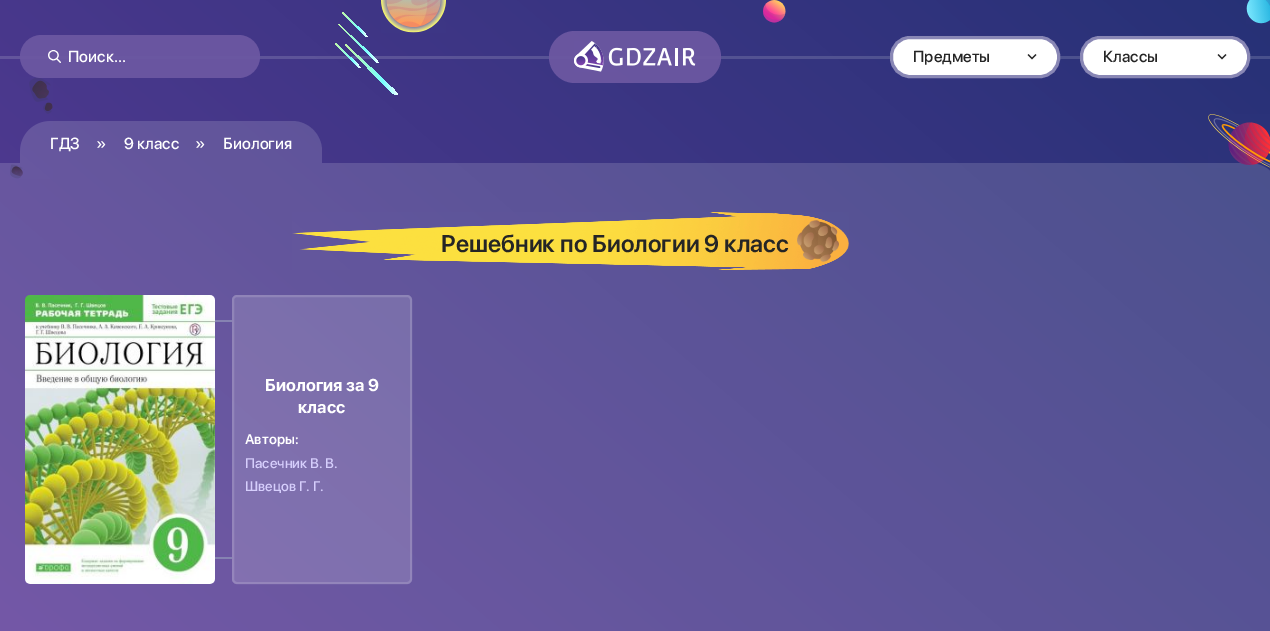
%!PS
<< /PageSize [1270 631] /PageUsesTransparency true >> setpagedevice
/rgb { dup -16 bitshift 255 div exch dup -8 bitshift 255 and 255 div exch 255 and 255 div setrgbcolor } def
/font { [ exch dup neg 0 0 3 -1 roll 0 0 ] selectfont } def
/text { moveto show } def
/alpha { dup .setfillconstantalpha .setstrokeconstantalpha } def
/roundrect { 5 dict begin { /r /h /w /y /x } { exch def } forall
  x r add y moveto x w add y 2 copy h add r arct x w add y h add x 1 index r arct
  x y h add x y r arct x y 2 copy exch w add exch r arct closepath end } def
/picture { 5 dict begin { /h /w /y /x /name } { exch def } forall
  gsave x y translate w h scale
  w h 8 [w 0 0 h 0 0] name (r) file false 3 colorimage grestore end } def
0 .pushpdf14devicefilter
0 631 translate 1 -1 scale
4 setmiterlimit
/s1 { /SFProDisplay-Medium 16 font 16#FFFFFF rgb } def
/s2 { /SFProDisplay-Medium 16 font 16#252525 rgb } def
/s3 { /SFProDisplay-SemiBold 24 font 16#252525 rgb } def
/s4 { /SFProDisplay-Bold 17 font 16#FFFFFF rgb } def
/s5 { /SFProDisplay-SemiBold 14 font 16#FFFFFF rgb } def
/s6 { /SFProDisplay-Medium 14 font 16#D6CEFC rgb } def
16#FFFFFF rgb
0 0 1270 631 rectfill
gsave 0 0 moveto 1270 0 lineto 1270 631 lineto 0 631 lineto closepath clip newpath
<< /ShadingType 2 /ColorSpace /DeviceRGB /Coords [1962 247 -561 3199] /Extend [true true] /Function << /FunctionType 2 /Domain [0 1] /C0 [0.11 0.184 0.439] /C1 [0.718 0.306 0.82] /N 1 >> >> shfill grestore
gsave 0 56 moveto 1270 56 lineto 1270 59 lineto 0 59 lineto closepath clip newpath
<< /ShadingType 2 /ColorSpace /DeviceRGB /Coords [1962 247 -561 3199] /Extend [true true] /Function << /FunctionType 2 /Domain [0 1] /C0 [0.243 0.306 0.522] /C1 [0.761 0.412 0.847] /N 1 >> >> shfill grestore
gsave 342 12 moveto 364.5 35.5 lineto 367 37 lineto 367.5 36.5 364.5 33.5 364.5 33 curveto closepath clip newpath
<< /ShadingType 2 /ColorSpace /DeviceRGB /Coords [365 22 333 29] /Extend [true true] /Function << /FunctionType 3 /Domain [0 1] /Functions [<< /FunctionType 2 /Domain [0 1] /C0 [1 1 1] /C1 [0.471 1 1] /N 1 >> << /FunctionType 2 /Domain [0 1] /C0 [0.471 1 1] /C1 [1 0.933 0.345] /N 1 >>] /Bounds [0.21] /Encode [0 1 0 1] >> >> shfill grestore
gsave 335 43 moveto 357.5 66.5 lineto 360 68 lineto 360.5 67.5 357.5 64.5 357.5 64 curveto closepath clip newpath
<< /ShadingType 2 /ColorSpace /DeviceRGB /Coords [358 53 326 60] /Extend [true true] /Function << /FunctionType 3 /Domain [0 1] /Functions [<< /FunctionType 2 /Domain [0 1] /C0 [1 1 1] /C1 [0.471 1 1] /N 1 >> << /FunctionType 2 /Domain [0 1] /C0 [0.471 1 1] /C1 [1 0.933 0.345] /N 1 >>] /Bounds [0.21] /Encode [0 1 0 1] >> >> shfill grestore
gsave 338 24 moveto 376 62 lineto 382 66 374 57 374 57 curveto closepath clip newpath
<< /ShadingType 2 /ColorSpace /DeviceRGB /Coords [375 40 324 51] /Extend [true true] /Function << /FunctionType 3 /Domain [0 1] /Functions [<< /FunctionType 2 /Domain [0 1] /C0 [1 1 1] /C1 [0.471 1 1] /N 1 >> << /FunctionType 2 /Domain [0 1] /C0 [0.471 1 1] /C1 [1 0.933 0.345] /N 1 >>] /Bounds [0.21] /Encode [0 1 0 1] >> >> shfill grestore
gsave 345 44 moveto 389 90 lineto 398 98 401 96 391 87 curveto 379 75 345 44 345 44 curveto closepath clip newpath
<< /ShadingType 2 /ColorSpace /DeviceRGB /Coords [394 65 327 79] /Extend [true true] /Function << /FunctionType 3 /Domain [0 1] /Functions [<< /FunctionType 2 /Domain [0 1] /C0 [1 1 1] /C1 [0.471 1 1] /N 1 >> << /FunctionType 2 /Domain [0 1] /C0 [0.471 1 1] /C1 [1 0.933 0.345] /N 1 >>] /Bounds [0.21] /Encode [0 1 0 1] >> >> shfill grestore
(pic1.raw) 381 0 65 33 picture
(pic2.raw) 763 0 23 23 picture
(pic3.raw) 1246 0 24 24 picture
0.15 alpha
50 121 moveto 292 121 lineto 308.5 121 322 134.5 322 151 curveto 322 163 lineto 20 163 lineto 20 151 lineto 20 134.5 33.5 121 50 121 curveto closepath fill
1 alpha
s1
(ГДЗ) 50 149 text
0.15 alpha
-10 163 moveto 1250 163 lineto 1266.5 163 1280 176.5 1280 193 curveto 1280 624 lineto 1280 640.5 1266.5 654 1250 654 curveto 20 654 lineto 3.5 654 -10 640.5 -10 624 curveto closepath fill
1 alpha
(pic4.raw) 10 77 43 102 picture
(pic5.raw) 1208 114 62 54 picture
0.95 alpha
16#6B57A1 rgb
20 35 240 43 21.5 roundrect fill
1 alpha
(pic6.raw) 48 50 13 13 picture
s1
(Поиск...) 68 62 text
0.95 alpha
16#6B57A1 rgb
549 31 172 52 26 roundrect fill
1 alpha
(pic7.raw) 574 41 122 31 picture
16#FFFFFF rgb
891.5 37.5 167 39 18.5 roundrect gsave fill grestore
16#8987B5 rgb
3 setlinewidth
stroke
s2
(Предметы) 913 62 text
(pic8.raw) 1027 54 10 6 picture
16#FFFFFF rgb
1081.5 37.5 167 39 18.5 roundrect gsave fill grestore
16#8987B5 rgb
stroke
s2
(Классы) 1103 62 text
(pic8.raw) 1217 54 10 6 picture
s1
(») 96 149 text
(9 класс) 124 149 text
(») 195 149 text
(Биология) 223 149 text
(pic9.raw) 292 212 557 58 picture
s3
(Решебник по Биологии 9 класс) 441 252 text
(pic10.raw) 797 220 42 42 picture
(pic11.raw) 25 295 190 289 picture
16#8683B2 rgb
215 320 17 2 rectfill
215 557 17 2 rectfill
0.15 alpha
16#FFFFFF rgb
232 295 180 289 5 roundrect fill
2 setlinewidth
233 296 178 287 4 roundrect stroke
1 alpha
s4
(Биология за 9) 265 391 text
(класс) 298 413 text
s5
(Авторы:) 245 444 text
s6
(Пасечник В. В.) 245 468 text
(Швецов Г. Г.) 245 491 text
.poppdf14devicefilter showpage
